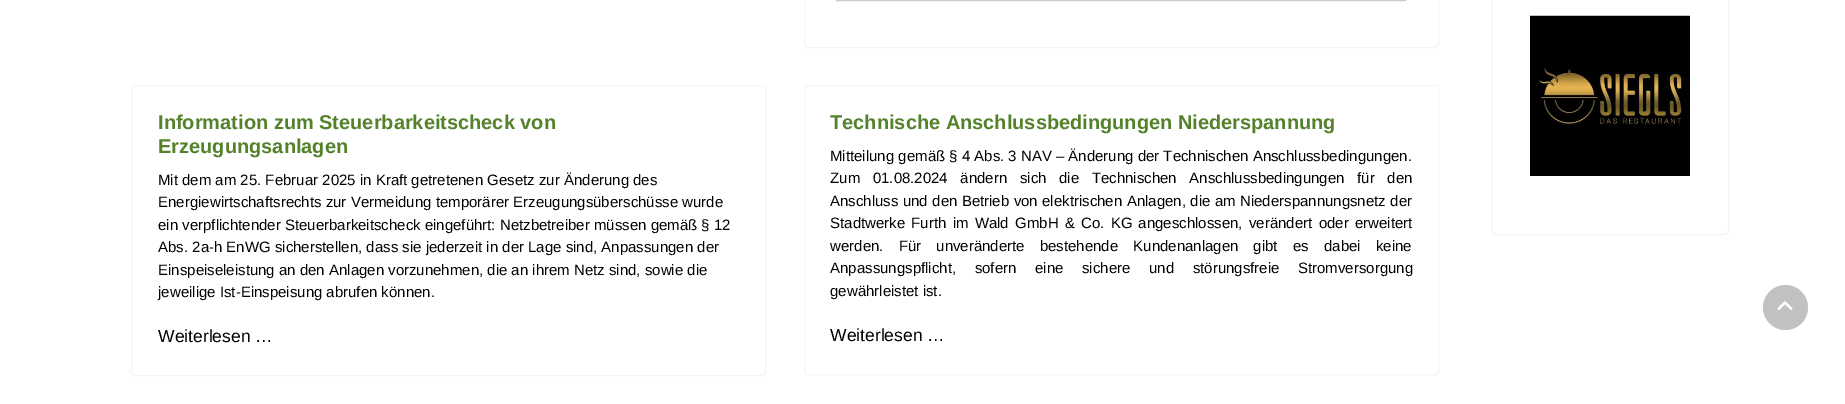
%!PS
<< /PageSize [1845 404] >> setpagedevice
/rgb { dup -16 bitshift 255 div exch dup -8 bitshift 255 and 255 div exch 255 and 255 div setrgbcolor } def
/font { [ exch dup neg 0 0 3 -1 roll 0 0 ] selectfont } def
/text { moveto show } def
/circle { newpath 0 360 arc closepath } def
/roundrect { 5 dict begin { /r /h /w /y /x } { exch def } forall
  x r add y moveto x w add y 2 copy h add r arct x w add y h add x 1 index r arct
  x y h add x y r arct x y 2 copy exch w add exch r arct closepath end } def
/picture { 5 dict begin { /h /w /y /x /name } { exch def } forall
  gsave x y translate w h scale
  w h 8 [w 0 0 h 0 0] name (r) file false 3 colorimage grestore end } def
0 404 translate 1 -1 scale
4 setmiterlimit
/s1 { /LiberationSans-Bold 20 font 16#53822B rgb } def
/s2 { /LiberationSans-Regular 15 font 16#000000 rgb } def
/s3 { /LiberationSans-Regular 17.5 font 16#000000 rgb } def
16#FFFFFF rgb
0 0 1845 404 rectfill
16#F5F5F5 rgb
804.5 -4.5 634 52 3.5 roundrect stroke
16#CCCCCC rgb
836.5 -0.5 569 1 rectstroke
16#F5F5F5 rgb
131.5 85.5 634 290 3.5 roundrect stroke
s1
(Information zum Steuerbarkeitscheck von) 158 129 text
(Erzeugungsanlagen) 158 153 text
s2
(Mit dem am 25. Februar 2025 in Kraft getretenen Gesetz zur Änderung des) 158 185 text
(Energiewirtschaftsrechts zur Vermeidung temporärer Erzeugungsüberschüsse wurde) 158 207 text
(ein verpflichtender Steuerbarkeitscheck eingeführt: Netzbetreiber müssen gemäß § 12) 158 230 text
(Abs. 2a-h EnWG sicherstellen, dass sie jederzeit in der Lage sind, Anpassungen der) 158 252 text
(Einspeiseleistung an den Anlagen vorzunehmen, die an ihrem Netz sind, sowie die) 158 275 text
(jeweilige Ist-Einspeisung abrufen können.) 158 297 text
s3
(Weiterlesen …) 158 342 text
16#F5F5F5 rgb
804.5 85.5 634 289 3.5 roundrect stroke
s1
(Technische Anschlussbedingungen Niederspannung) 830 129 text
s2
(Mitteilung gemäß § 4 Abs. 3 NAV – Änderung der Technischen Anschlussbedingungen.) 830 161 text
830 183 moveto 8.5 0 32 (Zum 01.08.2024 ändern sich die Technischen Anschlussbedingungen für den) widthshow
830 206 moveto 0.25 0 32 (Anschluss und den Betrieb von elektrischen Anlagen, die am Niederspannungsnetz der) widthshow
830 228 moveto 2.1 0 32 (Stadtwerke Furth im Wald GmbH & Co. KG angeschlossen, verändert oder erweitert) widthshow
830 251 moveto 11 0 32 (werden. Für unveränderte bestehende Kundenanlagen gibt es dabei keine) widthshow
830 273 moveto 14.5 0 32 (Anpassungspflicht, sofern eine sichere und störungsfreie Stromversorgung) widthshow
(gewährleistet ist.) 830 296 text
s3
(Weiterlesen …) 830 341 text
16#F3F3F3 rgb
1491.5 -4.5 237 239 3.5 roundrect stroke
(pic1.raw) 1530 15 160 161 picture
16#C1C1C1 rgb
1785.5 307.5 22.5 circle fill
(pic2.raw) 1777 301 16 9 picture
showpage
